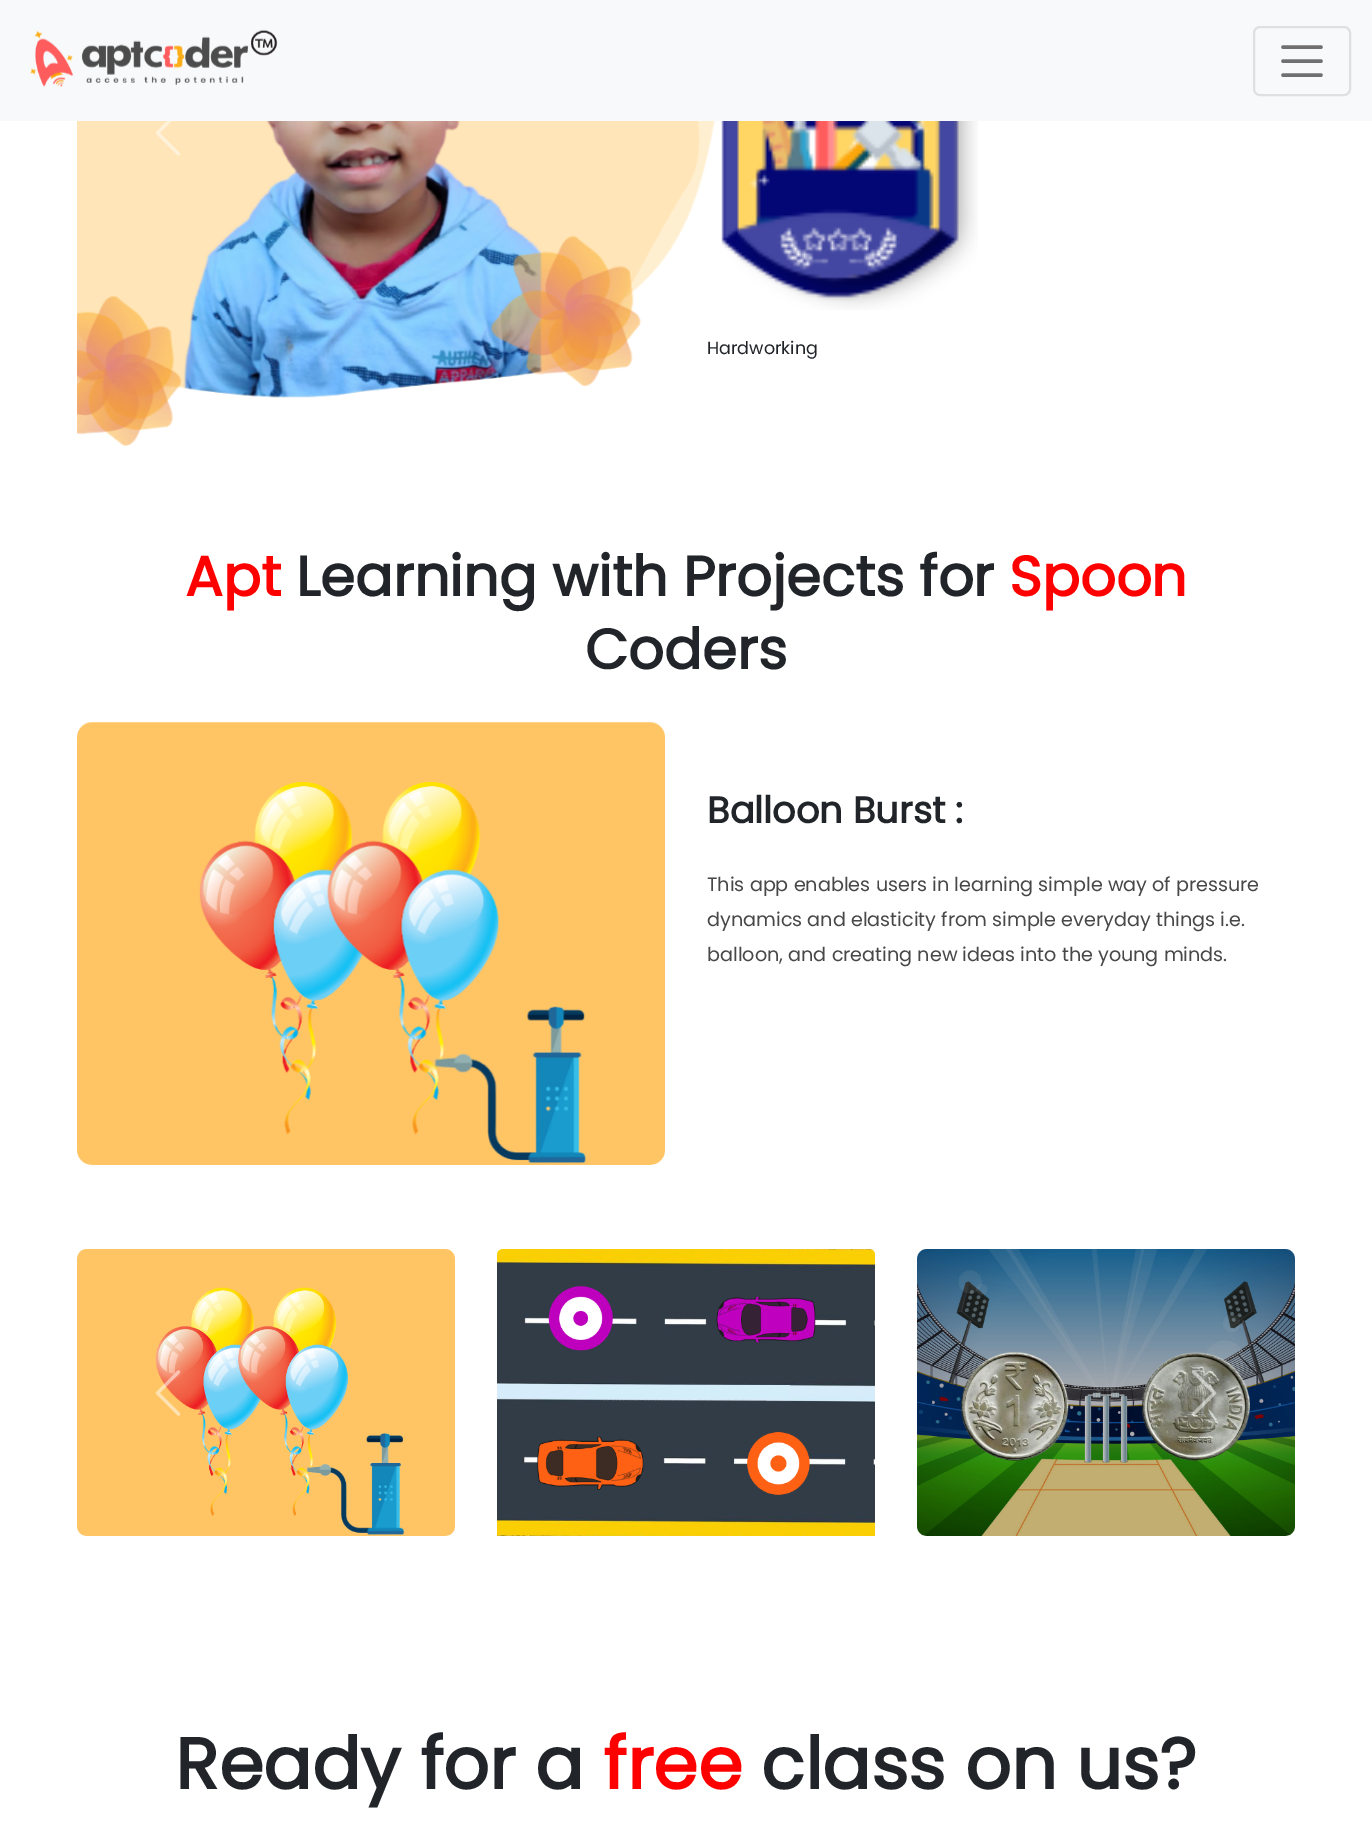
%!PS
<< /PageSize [1372 1847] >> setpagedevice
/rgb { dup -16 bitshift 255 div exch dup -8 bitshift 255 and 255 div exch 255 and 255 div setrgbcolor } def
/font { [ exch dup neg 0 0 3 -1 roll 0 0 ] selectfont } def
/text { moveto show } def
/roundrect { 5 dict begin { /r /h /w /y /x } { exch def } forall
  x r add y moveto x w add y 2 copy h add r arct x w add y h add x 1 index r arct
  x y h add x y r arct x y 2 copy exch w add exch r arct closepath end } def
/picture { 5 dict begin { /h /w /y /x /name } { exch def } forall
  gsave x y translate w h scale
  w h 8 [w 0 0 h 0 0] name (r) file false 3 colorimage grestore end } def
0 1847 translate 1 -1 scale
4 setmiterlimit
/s1 { /Poppins-Regular 17.5 font 16#212529 rgb } def
/s2 { /Poppins-Bold 56 font 16#FF0000 rgb } def
/s3 { /Poppins-Bold 56 font 16#212529 rgb } def
/s4 { /Poppins-Bold 36.75 font 16#212529 rgb } def
/s5 { /Poppins-Regular 19.2 font 16#484848 rgb } def
/s6 { /Poppins-Bold 71.75 font 16#212529 rgb } def
/s7 { /Poppins-Bold 71.75 font 16#FF0000 rgb } def
16#FFFFFF rgb
0 0 1372 1847 rectfill
16#F8F9FA rgb
0 0 1372 121 rectfill
(pic1.raw) 30 29 248 58 picture
16#DFE0E1 rgb
2 setlinewidth
1254 27 96 68 6 roundrect stroke
16#707071 rgb
3.5 setlinewidth
1 setlinecap
1283 47 moveto 1321 47 lineto 1283 61 moveto 1321 61 lineto 1283 75 moveto 1321 75 lineto stroke
(pic3.raw) 77 121 639 325 picture
(pic2.raw) 155 121 26 35 picture
(pic4.raw) 721 121 257 189 picture
s1
(Hardworking) 707 354 text
s2
(Apt) 185 596 text
s3
(Learning with Projects for) 296 596 text
s2
(Spoon) 1009 596 text
s3
(Coders) 585 669 text
(pic5.raw) 77 722 588 443 picture
s4
(Balloon Burst :) 707 823 text
s5
(This app enables users in learning simple way of pressure) 707 891 text
(dynamics and elasticity from simple everyday things i.e.) 707 926 text
(balloon, and creating new ideas into the young minds.) 707 961 text
(pic6.raw) 77 1249 378 287 picture
(pic7.raw) 497 1249 378 287 picture
(pic8.raw) 917 1249 378 287 picture
(pic9.raw) 155 1370 26 46 picture
(pic10.raw) 1191 1370 26 46 picture
s6
(Ready for a) 175 1789 text
s7
(free) 603 1789 text
s6
(class on us?) 761 1789 text
showpage
